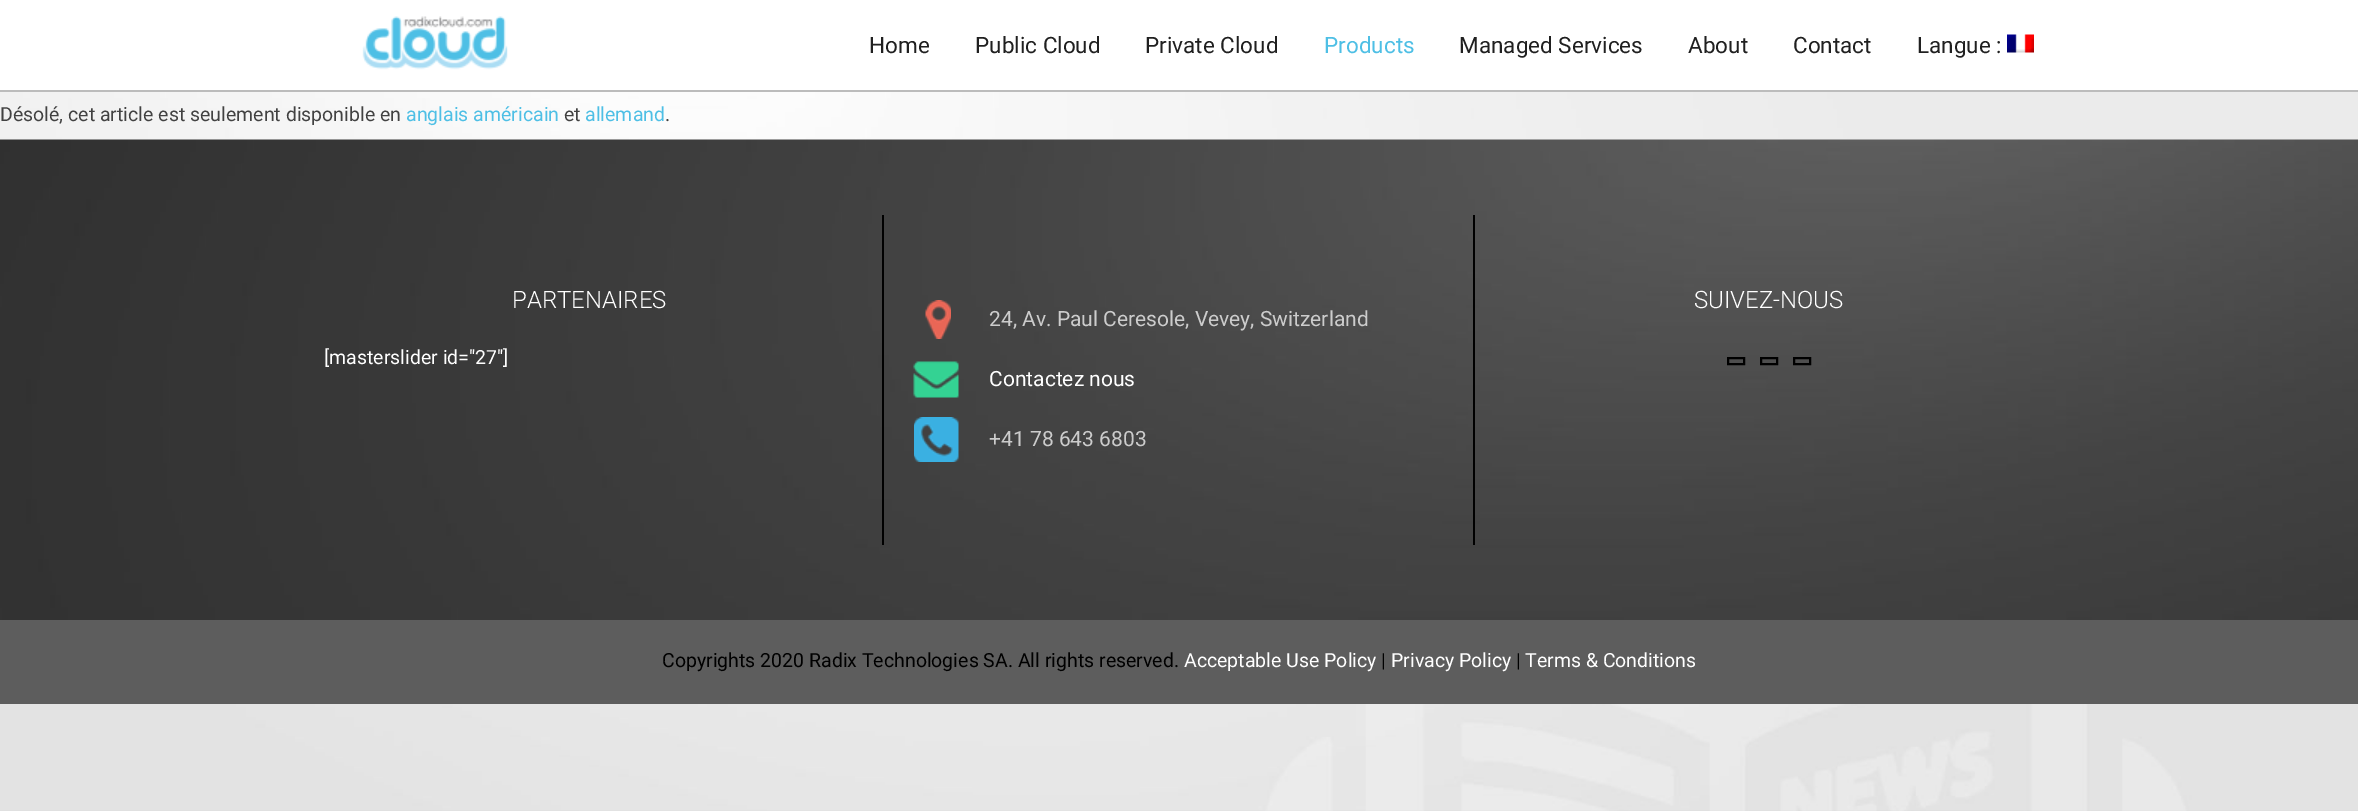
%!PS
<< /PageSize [2358 811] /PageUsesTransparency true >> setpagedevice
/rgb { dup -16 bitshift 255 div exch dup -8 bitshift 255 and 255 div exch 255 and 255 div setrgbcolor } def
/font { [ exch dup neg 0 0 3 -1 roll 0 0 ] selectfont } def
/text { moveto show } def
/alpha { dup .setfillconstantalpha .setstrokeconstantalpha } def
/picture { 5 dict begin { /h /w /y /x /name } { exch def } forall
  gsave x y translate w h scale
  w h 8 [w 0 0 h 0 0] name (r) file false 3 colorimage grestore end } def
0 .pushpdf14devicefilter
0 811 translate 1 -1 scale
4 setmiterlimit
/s1 { /Roboto-Regular 22.5 font 16#202020 rgb } def
/s2 { /Roboto-Regular 22.5 font 16#4EBFE5 rgb } def
/s3 { /Roboto-Regular 19.5 font 16#424242 rgb } def
/s4 { /Roboto-Regular 19.5 font 16#4EBFE5 rgb } def
/s5 { /Roboto-Light 24 font 16#FFFFFF rgb } def
/s6 { /Roboto-Regular 19.5 font 16#FFFFFF rgb } def
/s7 { /Roboto-Regular 21 font 16#CCCCCC rgb } def
/s8 { /Roboto-Regular 21 font 16#FFFFFF rgb } def
/s9 { /Roboto-Regular 19.5 font 16#000000 rgb } def
16#FFFFFF rgb
0 0 2358 811 rectfill
(pic1.raw) 0 92 2358 719 picture
16#BCBCBC rgb
0 90 2358 2 rectfill
(pic2.raw) 362 16 146 54 picture
s1
(Home) 869 53 text
(Public Cloud) 975 53 text
(Private Cloud) 1145 53 text
s2
(Products) 1324 53 text
s1
(Managed Services) 1459 53 text
(About) 1688 53 text
(Contact) 1793 53 text
(Langue :) 1917 53 text
(pic3.raw) 2007 34 27 19 picture
0.3 alpha
16#FFFFFF rgb
0 92 2358 48 rectfill
1 alpha
s3
(Désolé, cet article est seulement disponible en) 0 121 text
s4
(anglais américain) 406 121 text
s3
(et) 564 121 text
s4
(allemand) 585 121 text
s3
(.) 665 121 text
(pic4.raw) 0 139 2358 481 picture
s5
(PARTENAIRES) 512 308 text
s6
([masterslider id="27"]) 324 364 text
16#000000 rgb
882 215 2 330 rectfill
s5
(SUIVEZ-NOUS) 1694 308 text
16#000000 rgb
2 setlinewidth
1728 358 16 6 rectstroke
1761 358 16 6 rectstroke
1794 358 16 6 rectstroke
(pic5.raw) 925 300 26 39 picture
s7
(24, Av. Paul Ceresole, Vevey, Switzerland) 989 326 text
(pic6.raw) 913 361 46 37 picture
s8
(Contactez nous) 989 386 text
(pic7.raw) 914 417 45 45 picture
s7
(+41 78 643 6803) 989 446 text
16#000000 rgb
1473 215 2 330 rectfill
16#5D5D5D rgb
0 620 2358 84 rectfill
s9
(Copyrights 2020 Radix Technologies SA. All rights reserved.) 662 667 text
s6
(Acceptable Use Policy) 1184 667 text
s9
(|) 1381 667 text
s6
(Privacy Policy) 1391 667 text
s9
(|) 1516 667 text
s6
(Terms & Conditions) 1525 667 text
.poppdf14devicefilter showpage
